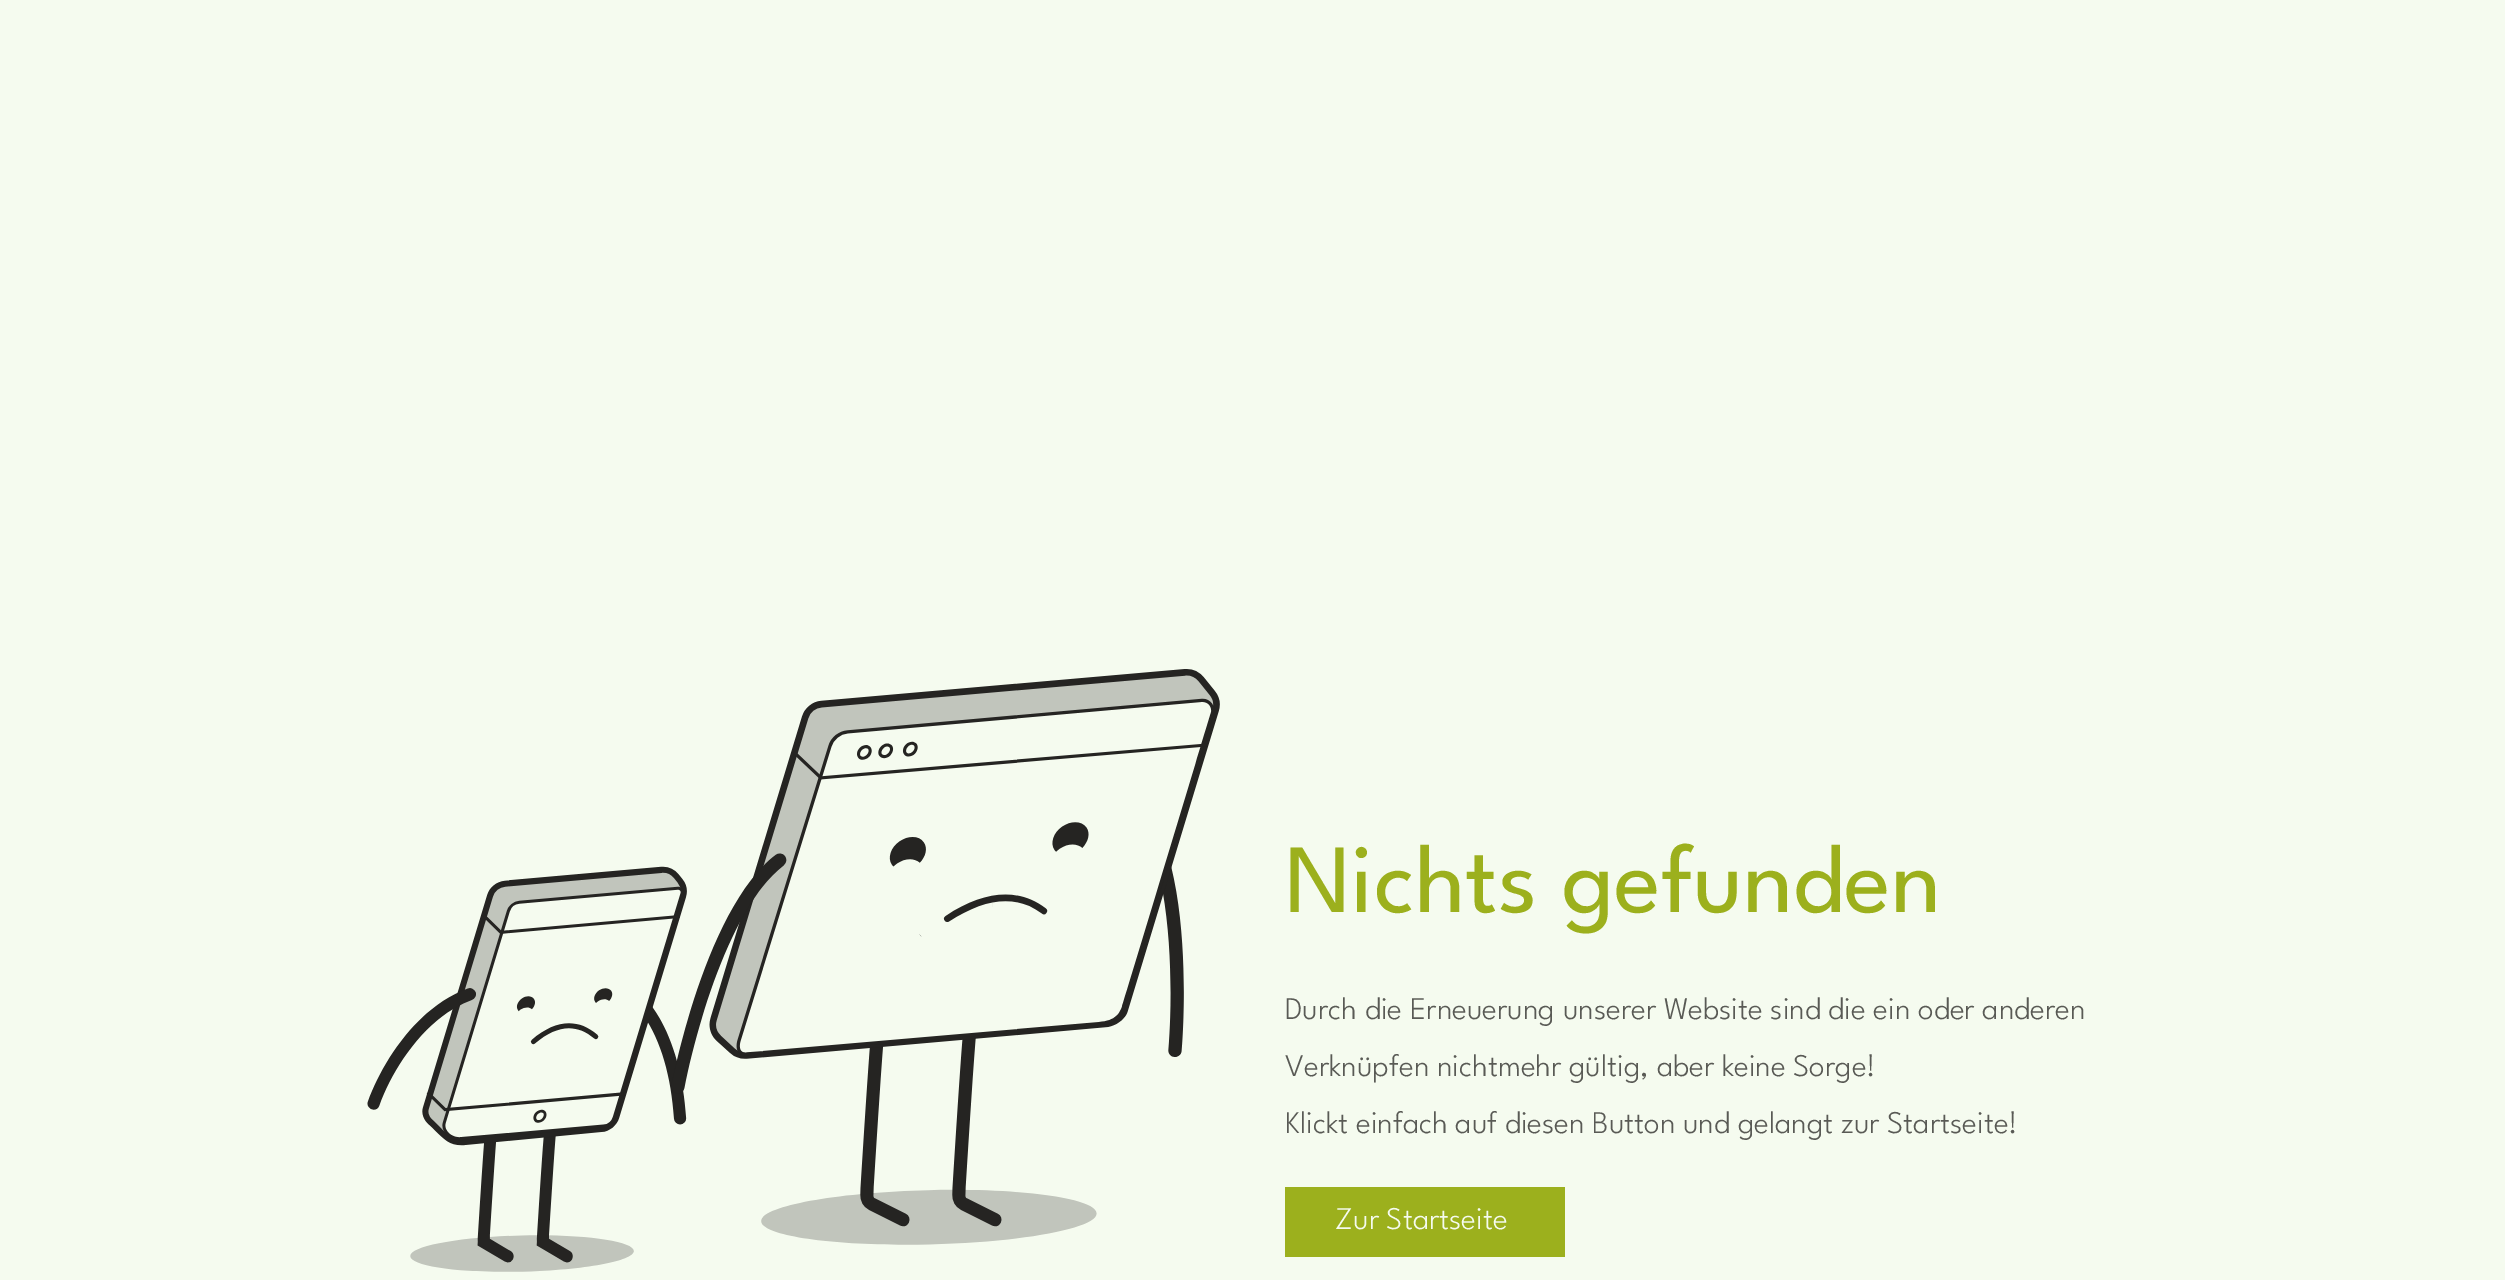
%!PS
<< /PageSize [2505 1280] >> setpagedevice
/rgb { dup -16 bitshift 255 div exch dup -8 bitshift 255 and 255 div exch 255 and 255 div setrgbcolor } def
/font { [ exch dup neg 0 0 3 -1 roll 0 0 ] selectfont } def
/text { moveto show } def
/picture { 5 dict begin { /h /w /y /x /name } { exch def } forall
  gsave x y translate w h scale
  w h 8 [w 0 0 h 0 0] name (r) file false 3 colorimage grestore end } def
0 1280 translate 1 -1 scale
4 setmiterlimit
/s1 { /LeagueSpartan-Regular 98 font 16#9CB01D rgb } def
/s2 { /LeagueSpartan-Thin 31.5 font 16#595A55 rgb } def
/s3 { /LeagueSpartan-Thin 31.5 font 16#F5FBEF rgb } def
16#F5FBEF rgb
0 0 2505 1280 rectfill
(pic1.raw) 367 669 853 603 picture
s1
(Nichts gefunden) 1285 912 text
s2
(Durch die Erneuerung unserer Website sind die ein oder anderen) 1285 1019 text
(Verknüpfen nichtmehr gültig, aber keine Sorge!) 1285 1076 text
(Klickt einfach auf diesen Button und gelangt zur Startseite!) 1285 1133 text
16#9CB01D rgb
1285 1187 280 70 rectfill
s3
(Zur Startseite) 1335 1229 text
showpage
